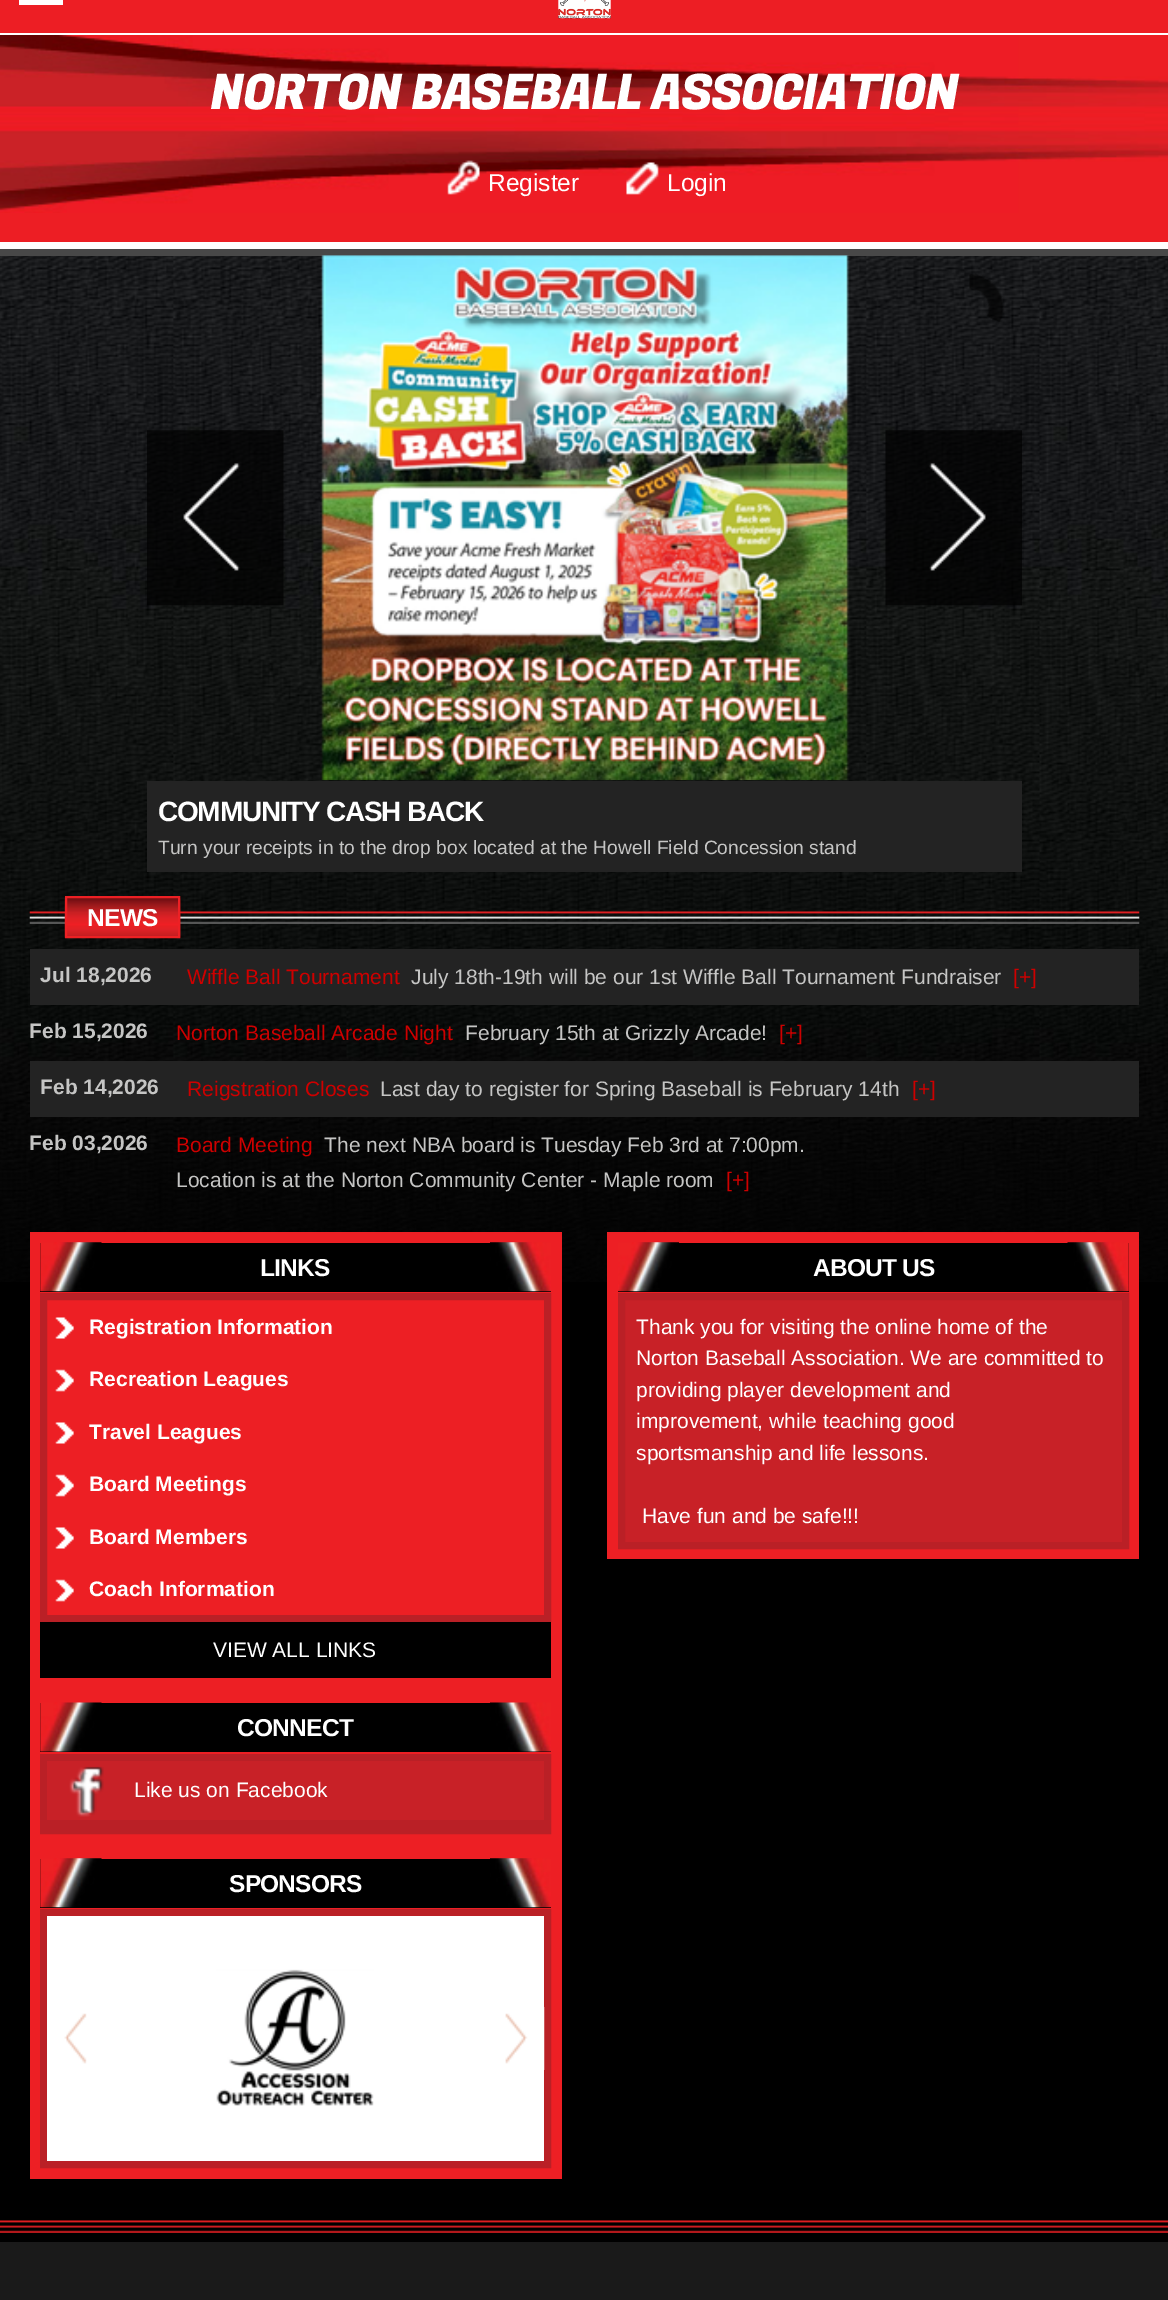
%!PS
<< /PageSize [1168 2300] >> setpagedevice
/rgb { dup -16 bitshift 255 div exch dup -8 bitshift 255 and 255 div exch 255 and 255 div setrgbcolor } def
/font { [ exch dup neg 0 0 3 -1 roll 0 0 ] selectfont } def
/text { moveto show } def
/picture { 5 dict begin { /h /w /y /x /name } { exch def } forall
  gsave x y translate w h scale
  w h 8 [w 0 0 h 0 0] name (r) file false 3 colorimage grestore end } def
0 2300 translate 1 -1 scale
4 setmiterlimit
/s1 { /LiberationSans-Regular 24.5 font 16#FFFFFF rgb } def
/s2 { /LiberationSans-Regular 19.25 font 16#C5C5C4 rgb } def
/s3 { /LiberationSans-Bold 21 font 16#C5C5C4 rgb } def
/s4 { /LiberationSans-Regular 21 font 16#CD0000 rgb } def
/s5 { /LiberationSans-Regular 21 font 16#C5C5C4 rgb } def
/s6 { /LiberationSans-Bold 21 font 16#FFFFFF rgb } def
/s7 { /LiberationSans-Regular 21 font 16#FFFFFF rgb } def
16#000000 rgb
0 0 1168 2300 rectfill
16#ED1E24 rgb
0 0 1168 33 rectfill
16#FFFFFF rgb
0 33 1168 2 rectfill
19 -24 moveto 63 -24 lineto 63 -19 lineto 19 -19 lineto closepath 19 -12 moveto 63 -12 lineto 63 -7 lineto 19 -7 lineto closepath 19 0 moveto 63 0 lineto 63 5 lineto 19 5 lineto closepath fill
(pic1.raw) 558 0 53 19 picture
(pic2.raw) 0 256 1168 1026 picture
16#ED1E24 rgb
0 213 1168 29 rectfill
16#484848 rgb
0 249 1168 7 rectfill
(pic3.raw) 0 35 1168 178 picture
16#FFFFFF rgb
0 242 1168 7 rectfill
/FugazOne-Regular 49 font
210 109 moveto -1.5 0 (NORTON BASEBALL ASSOCIATION) ashow
(pic4.raw) 447 160 33 35 picture
s1
(Register) 488 191 text
(pic5.raw) 626 162 33 33 picture
(Login) 667 191 text
(pic6.raw) 321 255 529 526 picture
(pic7.raw) 969 274 35 48 picture
(pic8.raw) 147 430 137 176 picture
(pic9.raw) 885 430 137 176 picture
16#232323 rgb
147 781 875 91 rectfill
/LiberationSans-Bold 28 font
16#FFFFFF rgb
158 821 moveto -1.25 0 (COMMUNITY CASH BACK) ashow
s2
(Turn your receipts in to the drop box located at the Howell Field Concession stand) 158 854 text
(pic10.raw) 29 911 1111 13 picture
(pic11.raw) 64 897 117 41 picture
16#ED2024 rgb
2 setlinewidth
66 897 113 40 rectstroke
/LiberationSans-Bold 24.5 font
16#FFFFFF rgb
87 926 moveto -0.75 0 (NEWS) ashow
16#232323 rgb
30 949 1109 56 rectfill
s3
(Jul 18,2026) 40 982 text
s4
(Wiffle Ball Tournament) 187 984 text
s5
(July 18th-19th will be our 1st Wiffle Ball Tournament Fundraiser) 411 984 text
s4
([+]) 1013 984 text
s3
(Feb 15,2026) 29 1038 text
s4
(Norton Baseball Arcade Night) 176 1040 text
s5
(February 15th at Grizzly Arcade!) 465 1040 text
s4
([+]) 779 1040 text
16#232323 rgb
30 1061 1109 56 rectfill
s3
(Feb 14,2026) 40 1094 text
s4
(Reigstration Closes) 187 1096 text
s5
(Last day to register for Spring Baseball is February 14th) 380 1096 text
s4
([+]) 912 1096 text
s3
(Feb 03,2026) 29 1150 text
s4
(Board Meeting) 176 1152 text
s5
(The next NBA board is Tuesday Feb 3rd at 7:00pm.) 324 1152 text
(Location is at the Norton Community Center - Maple room) 176 1187 text
s4
([+]) 726 1187 text
16#ED1F24 rgb
30 1232 532 947 rectfill
16#000000 rgb
40 1243 511 49 rectfill
(pic12.raw) 40 1242 62 50 picture
(pic13.raw) 490 1242 61 50 picture
/LiberationSans-Bold 24.5 font
16#FFFFFF rgb
260 1276 moveto -0.75 0 (LINKS) ashow
16#BA2026 rgb
7 setlinewidth
43.5 1296.5 504 322 rectstroke
(pic14.raw) 55 1317 19 22 picture
s6
(Registration Information) 89 1334 text
(pic15.raw) 55 1369 19 23 picture
(Recreation Leagues) 89 1386 text
(pic14.raw) 55 1422 19 22 picture
(Travel Leagues) 89 1439 text
(pic15.raw) 55 1474 19 23 picture
(Board Meetings) 89 1491 text
(pic14.raw) 55 1527 19 22 picture
(Board Members) 89 1544 text
(pic15.raw) 55 1579 19 23 picture
(Coach Information) 89 1596 text
16#000000 rgb
40 1622 511 56 rectfill
s7
(VIEW ALL LINKS) 213 1657 text
16#000000 rgb
40 1703 511 49 rectfill
(pic16.raw) 40 1702 62 50 picture
(pic17.raw) 490 1702 61 50 picture
/LiberationSans-Bold 24.5 font
16#FFFFFF rgb
237 1736 moveto -0.75 0 (CONNECT) ashow
16#BA2026 rgb
43.5 1757.5 504 73 rectstroke
16#C82127 rgb
47 1761 497 59 rectfill
16#BA2026 rgb
47 1820 497 7 rectfill
(pic18.raw) 69 1766 35 51 picture
s7
(Like us on Facebook) 134 1797 text
16#000000 rgb
40 1859 511 49 rectfill
(pic12.raw) 40 1858 62 50 picture
(pic13.raw) 490 1858 61 50 picture
/LiberationSans-Bold 24.5 font
16#FFFFFF rgb
229 1892 moveto -0.75 0 (SPONSORS) ashow
16#BA2026 rgb
43.5 1912.5 504 252 rectstroke
16#FFFFFF rgb
47 1916 497 245 rectfill
(pic19.raw) 64 2013 23 51 picture
(pic20.raw) 216 1969 158 137 picture
(pic21.raw) 505 2007 40 63 picture
16#ED1F24 rgb
607 1232 532 327 rectfill
16#000000 rgb
618 1243 511 49 rectfill
(pic22.raw) 618 1242 61 50 picture
(pic23.raw) 1067 1242 62 50 picture
16#FFFFFF rgb
813 1276 moveto -0.75 0 (ABOUT US) ashow
16#C82127 rgb
621.5 1296.5 moveto 1125.5 1296.5 lineto 1125.5 1545.5 lineto 621.5 1545.5 lineto closepath gsave fill grestore
16#BA2026 rgb
stroke
s7
(Thank you for visiting the online home of the) 636 1334 text
(Norton Baseball Association. We are committed to) 636 1365 text
(providing player development and) 636 1397 text
(improvement, while teaching good) 636 1428 text
(sportsmanship and life lessons.) 636 1460 text
(Have fun and be safe!!!) 642 1523 text
(pic24.raw) 0 2220 1168 13 picture
16#1A1A1A rgb
0 2242 1168 58 rectfill
showpage
